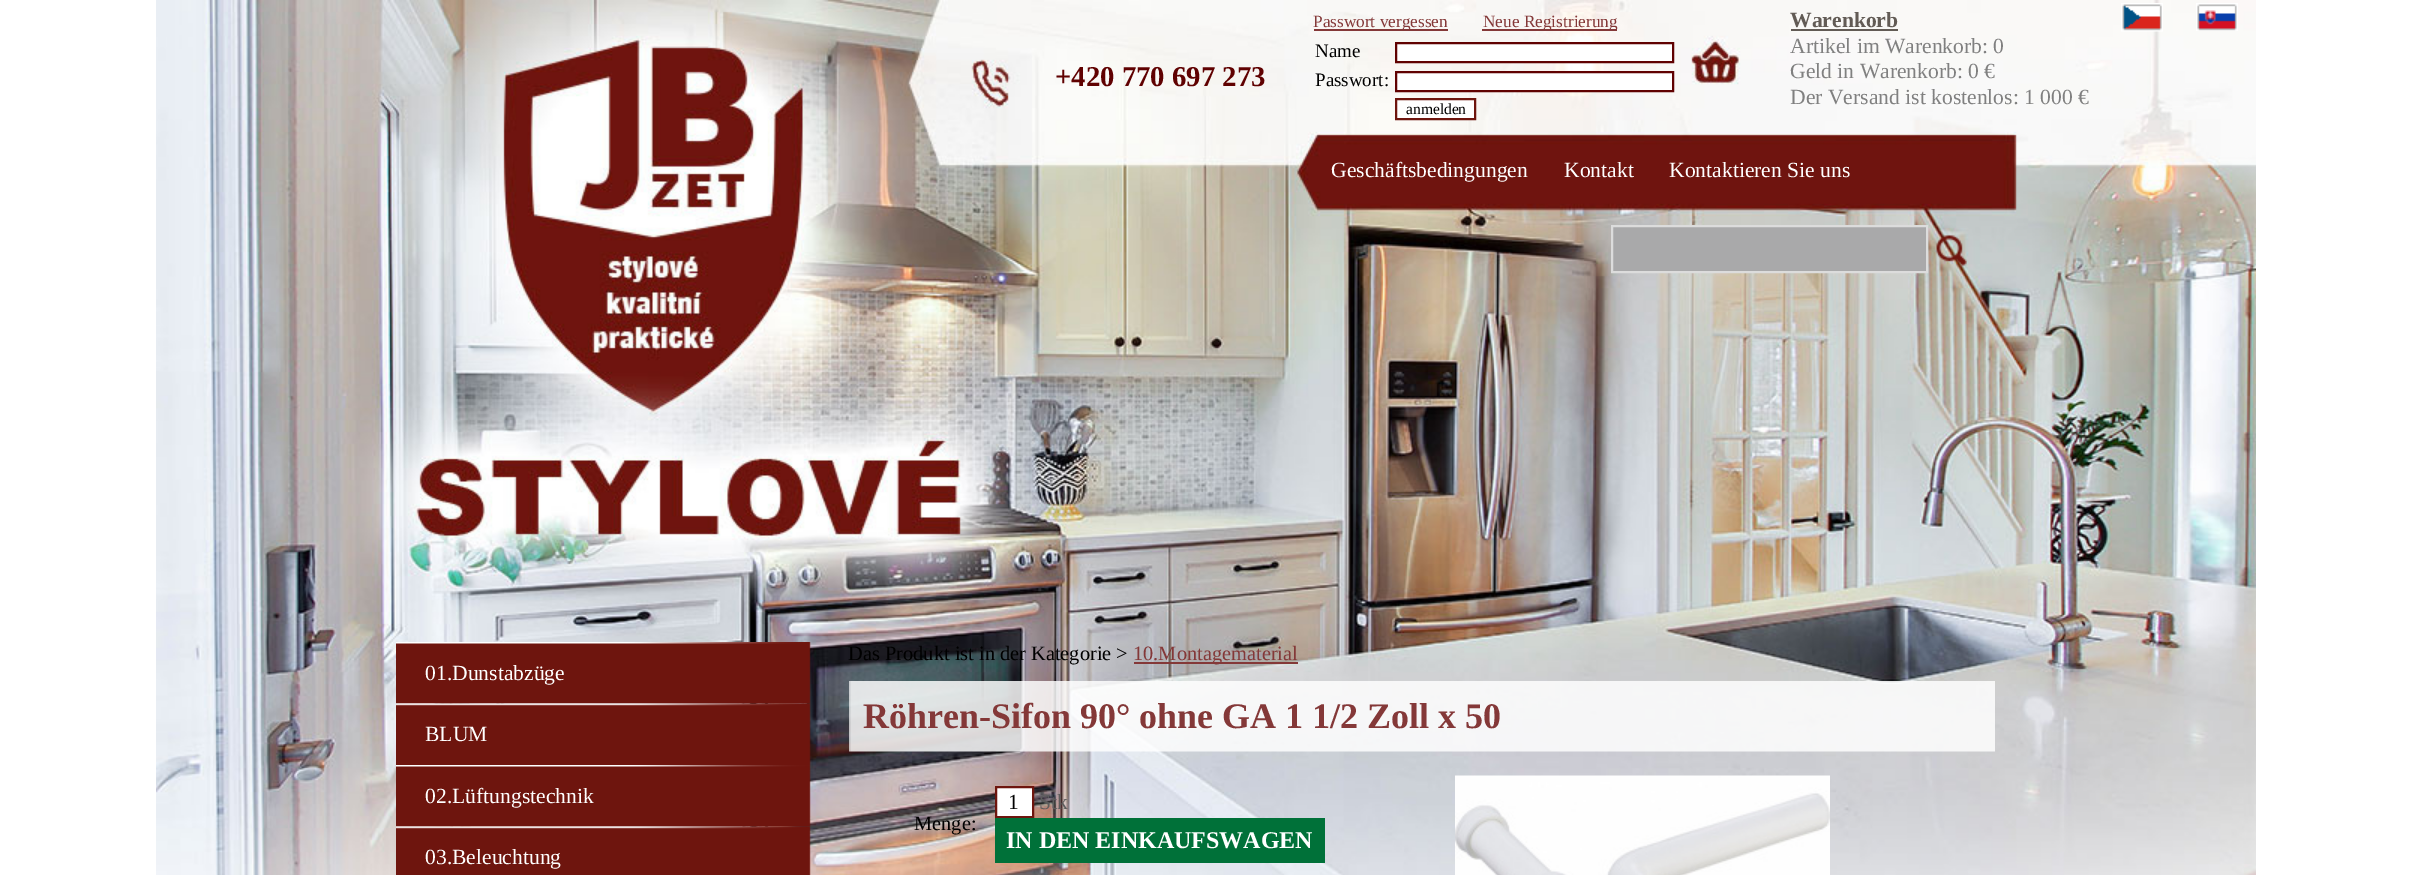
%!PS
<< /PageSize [2411 875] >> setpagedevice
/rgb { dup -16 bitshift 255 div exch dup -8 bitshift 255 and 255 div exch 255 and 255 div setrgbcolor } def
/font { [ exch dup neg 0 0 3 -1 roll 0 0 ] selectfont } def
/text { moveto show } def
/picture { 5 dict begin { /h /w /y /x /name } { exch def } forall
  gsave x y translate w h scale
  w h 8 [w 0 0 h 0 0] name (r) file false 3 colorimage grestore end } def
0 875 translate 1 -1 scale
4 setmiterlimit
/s1 { /LiberationSerif-Bold 28.75 font 16#600101 rgb } def
/s2 { /LiberationSerif-Regular 17.25 font 16#843838 rgb } def
/s3 { /LiberationSerif-Regular 19 font 16#000000 rgb } def
/s4 { /LiberationSerif-Regular 15.5 font 16#000000 rgb } def
/s5 { /LiberationSerif-Bold 21.6 font 16#625B55 rgb } def
/s6 { /LiberationSerif-Regular 21.6 font 16#808080 rgb } def
/s7 { /LiberationSerif-Regular 21.6 font 16#FFFFFF rgb } def
/s8 { /LiberationSerif-Regular 20.4 font 16#000000 rgb } def
/s9 { /LiberationSerif-Regular 20.4 font 16#843838 rgb } def
/s10 { /LiberationSerif-Bold 36 font 16#843838 rgb } def
/s11 { /LiberationSerif-Regular 21.6 font 16#000000 rgb } def
/s12 { /LiberationSerif-Regular 21.6 font 16#5D5D5D rgb } def
/s13 { /LiberationSerif-Bold 24 font 16#FFFFFF rgb } def
16#FFFFFF rgb
0 0 2411 875 rectfill
(pic1.raw) 156 0 2100 875 picture
s1
(+420 770 697 273) 1055 86 text
16#843838 rgb
1314 29 134 2 rectfill
s2
(Passwort vergessen) 1313 27 text
1482 29 135 2 rectfill
(Neue Registrierung) 1483 27 text
s3
(Name) 1315 57 text
16#FFFFFF rgb
1396 43 moveto 1673 43 lineto 1673 62 lineto 1396 62 lineto closepath gsave fill grestore
16#600101 rgb
2 setlinewidth
stroke
s3
(Passwort:) 1315 86 text
16#FFFFFF rgb
1396 72 moveto 1673 72 lineto 1673 91 lineto 1396 91 lineto closepath gsave fill grestore
16#600101 rgb
stroke
16#FFFFFF rgb
1396 99 moveto 1475 99 lineto 1475 119 lineto 1396 119 lineto closepath gsave fill grestore
16#6E150E rgb
stroke
s4
(anmelden) 1406 114 text
s5
(Warenkorb) 1790 27 text
1791 29 107 2 rectfill
s6
(Artikel im Warenkorb: 0) 1790 53 text
(Geld in Warenkorb: 0 €) 1790 78 text
(Der Versand ist kostenlos: 1 000 €) 1790 104 text
(pic2.raw) 2121 3 42 29 picture
(pic3.raw) 2196 3 42 28 picture
s7
(Geschäftsbedingungen) 1331 177 text
(Kontakt) 1564 177 text
(Kontaktieren Sie uns) 1669 177 text
16#A9A9AA rgb
1612 226 moveto 1927 226 lineto 1927 272 lineto 1612 272 lineto closepath gsave fill grestore
16#DCDCDC rgb
stroke
(pic4.raw) 1936 235 31 31 picture
(pic5.raw) 396 642 415 62 picture
s7
(01.Dunstabzüge) 425 680 text
(pic6.raw) 396 703 415 62 picture
(BLUM) 425 741 text
(pic7.raw) 396 765 415 62 picture
(02.Lüftungstechnik) 425 803 text
(pic8.raw) 396 826 415 49 picture
(03.Beleuchtung) 425 864 text
s8
(Das Produkt ist in der Kategorie >) 848 660 text
16#843838 rgb
1134 662 164 2 rectfill
(10.Montagematerial) 1133 660 text
(pic9.raw) 849 681 1146 71 picture
s10
(Röhren-Sifon 90° ohne GA 1 1/2 Zoll x 50) 863 728 text
s8
(Menge:) 914 830 text
16#FFFFFF rgb
996 787 moveto 1033 787 lineto 1033 817 lineto 996 817 lineto closepath gsave fill grestore
16#6E150E rgb
stroke
s11
(1) 1008 809 text
s12
(Stk) 1039 809 text
16#007139 rgb
995 818 330 45 rectfill
s13
(IN DEN EINKAUFSWAGEN) 1006 848 text
(pic10.raw) 1455 775 375 100 picture
showpage
